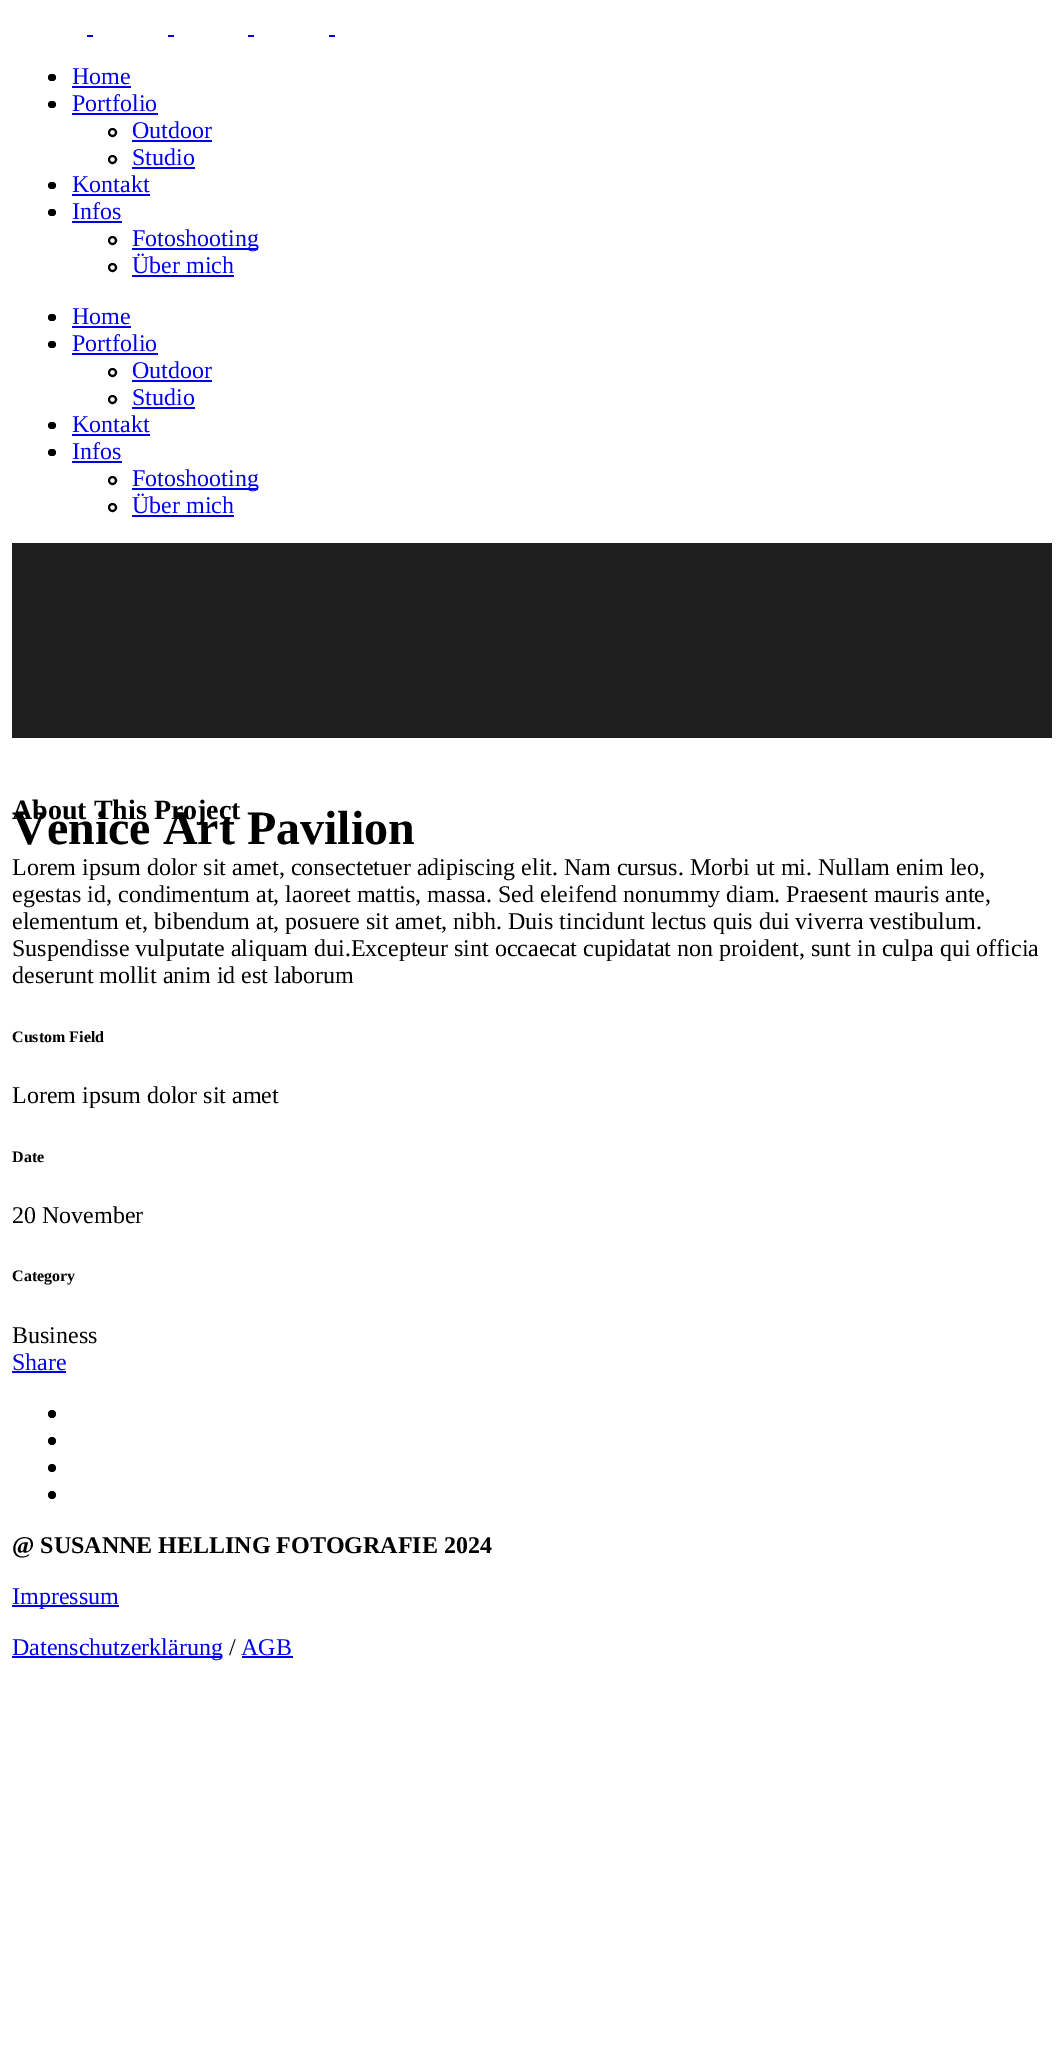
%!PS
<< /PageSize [1063 2045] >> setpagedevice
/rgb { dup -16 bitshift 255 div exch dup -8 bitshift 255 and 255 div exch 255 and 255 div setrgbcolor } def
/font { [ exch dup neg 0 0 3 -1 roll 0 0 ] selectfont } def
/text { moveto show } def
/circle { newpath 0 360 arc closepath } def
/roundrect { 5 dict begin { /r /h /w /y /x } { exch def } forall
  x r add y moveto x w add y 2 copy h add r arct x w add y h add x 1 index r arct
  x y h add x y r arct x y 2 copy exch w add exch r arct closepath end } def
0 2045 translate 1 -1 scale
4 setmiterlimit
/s1 { /LiberationSerif-Regular 24 font 16#0000EE rgb } def
/s2 { /LiberationSerif-Bold 48 font 16#000000 rgb } def
/s3 { /LiberationSerif-Bold 28 font 16#000000 rgb } def
/s4 { /LiberationSerif-Regular 24 font 16#000000 rgb } def
/s5 { /LiberationSerif-Bold 16 font 16#000000 rgb } def
/s6 { /LiberationSerif-Bold 24 font 16#000000 rgb } def
16#FFFFFF rgb
0 0 1063 2045 rectfill
16#0000EE rgb
87 35 6 2 rectfill
168 35 6 2 rectfill
248 35 6 2 rectfill
329 35 6 2 rectfill
16#000000 rgb
48 74 8 7 3.5 roundrect fill
s1
(Home) 72 84 text
72 86 59 2 rectfill
16#000000 rgb
48 101 8 7 3.5 roundrect fill
s1
(Portfolio) 72 111 text
72 113 86 2 rectfill
16#000000 rgb
2 setlinewidth
112.5 132.5 3.5 circle stroke
s1
(Outdoor) 132 138 text
132 140 80 2 rectfill
16#000000 rgb
112.5 159.5 3.5 circle stroke
s1
(Studio) 132 165 text
132 167 63 2 rectfill
16#000000 rgb
48 182 8 7 3.5 roundrect fill
s1
(Kontakt) 72 192 text
72 194 78 2 rectfill
16#000000 rgb
48 209 8 7 3.5 roundrect fill
s1
(Infos) 72 219 text
72 221 50 2 rectfill
16#000000 rgb
112.5 240.5 3.5 circle stroke
16#0000EE rgb
132 248 126 2 rectfill
(Fotoshooting) 132 246 text
16#000000 rgb
112.5 267.5 3.5 circle stroke
s1
(Über mich) 132 273 text
132 275 102 2 rectfill
16#000000 rgb
48 314 8 7 3.5 roundrect fill
s1
(Home) 72 324 text
72 326 59 2 rectfill
16#000000 rgb
48 341 8 7 3.5 roundrect fill
s1
(Portfolio) 72 351 text
72 353 86 2 rectfill
16#000000 rgb
112.5 372.5 3.5 circle stroke
s1
(Outdoor) 132 378 text
132 380 80 2 rectfill
16#000000 rgb
112.5 399.5 3.5 circle stroke
s1
(Studio) 132 405 text
132 407 63 2 rectfill
16#000000 rgb
48 422 8 7 3.5 roundrect fill
s1
(Kontakt) 72 432 text
72 434 78 2 rectfill
16#000000 rgb
48 449 8 7 3.5 roundrect fill
s1
(Infos) 72 459 text
72 461 50 2 rectfill
16#000000 rgb
112.5 480.5 3.5 circle stroke
16#0000EE rgb
132 488 126 2 rectfill
(Fotoshooting) 132 486 text
16#000000 rgb
112.5 507.5 3.5 circle stroke
s1
(Über mich) 132 513 text
132 515 102 2 rectfill
s2
(Venice Art Pavilion) 12 844 text
s3
(About This Project) 12 819 text
s4
(Lorem ipsum dolor sit amet, consectetuer adipiscing elit. Nam cursus. Morbi ut mi. Nullam enim leo,) 12 875 text
(egestas id, condimentum at, laoreet mattis, massa. Sed eleifend nonummy diam. Praesent mauris ante,) 12 902 text
(elementum et, bibendum at, posuere sit amet, nibh. Duis tincidunt lectus quis dui viverra vestibulum.) 12 929 text
(Suspendisse vulputate aliquam dui.Excepteur sint occaecat cupidatat non proident, sunt in culpa qui officia) 12 956 text
(deserunt mollit anim id est laborum) 12 983 text
s5
(Custom Field) 12 1042 text
s4
(Lorem ipsum dolor sit amet) 12 1103 text
s5
(Date) 12 1162 text
s4
(20 November) 12 1223 text
s5
(Category) 12 1281 text
s4
(Business) 12 1343 text
s1
(Share) 12 1370 text
12 1371 54 2 rectfill
16#000000 rgb
52 1414 4 circle fill
52 1441 4 circle fill
52 1468 4 circle fill
52 1495 4 circle fill
16#1E1E1E rgb
12 543 1040 195 rectfill
s6
(@ SUSANNE HELLING FOTOGRAFIE 2024) 12 1553 text
16#0000EE rgb
12 1605 107 2 rectfill
s1
(Impressum) 12 1604 text
12 1656 210 2 rectfill
(Datenschutzerklärung) 12 1655 text
s4
(/) 229 1655 text
s1
(AGB) 241 1655 text
242 1656 51 2 rectfill
showpage
